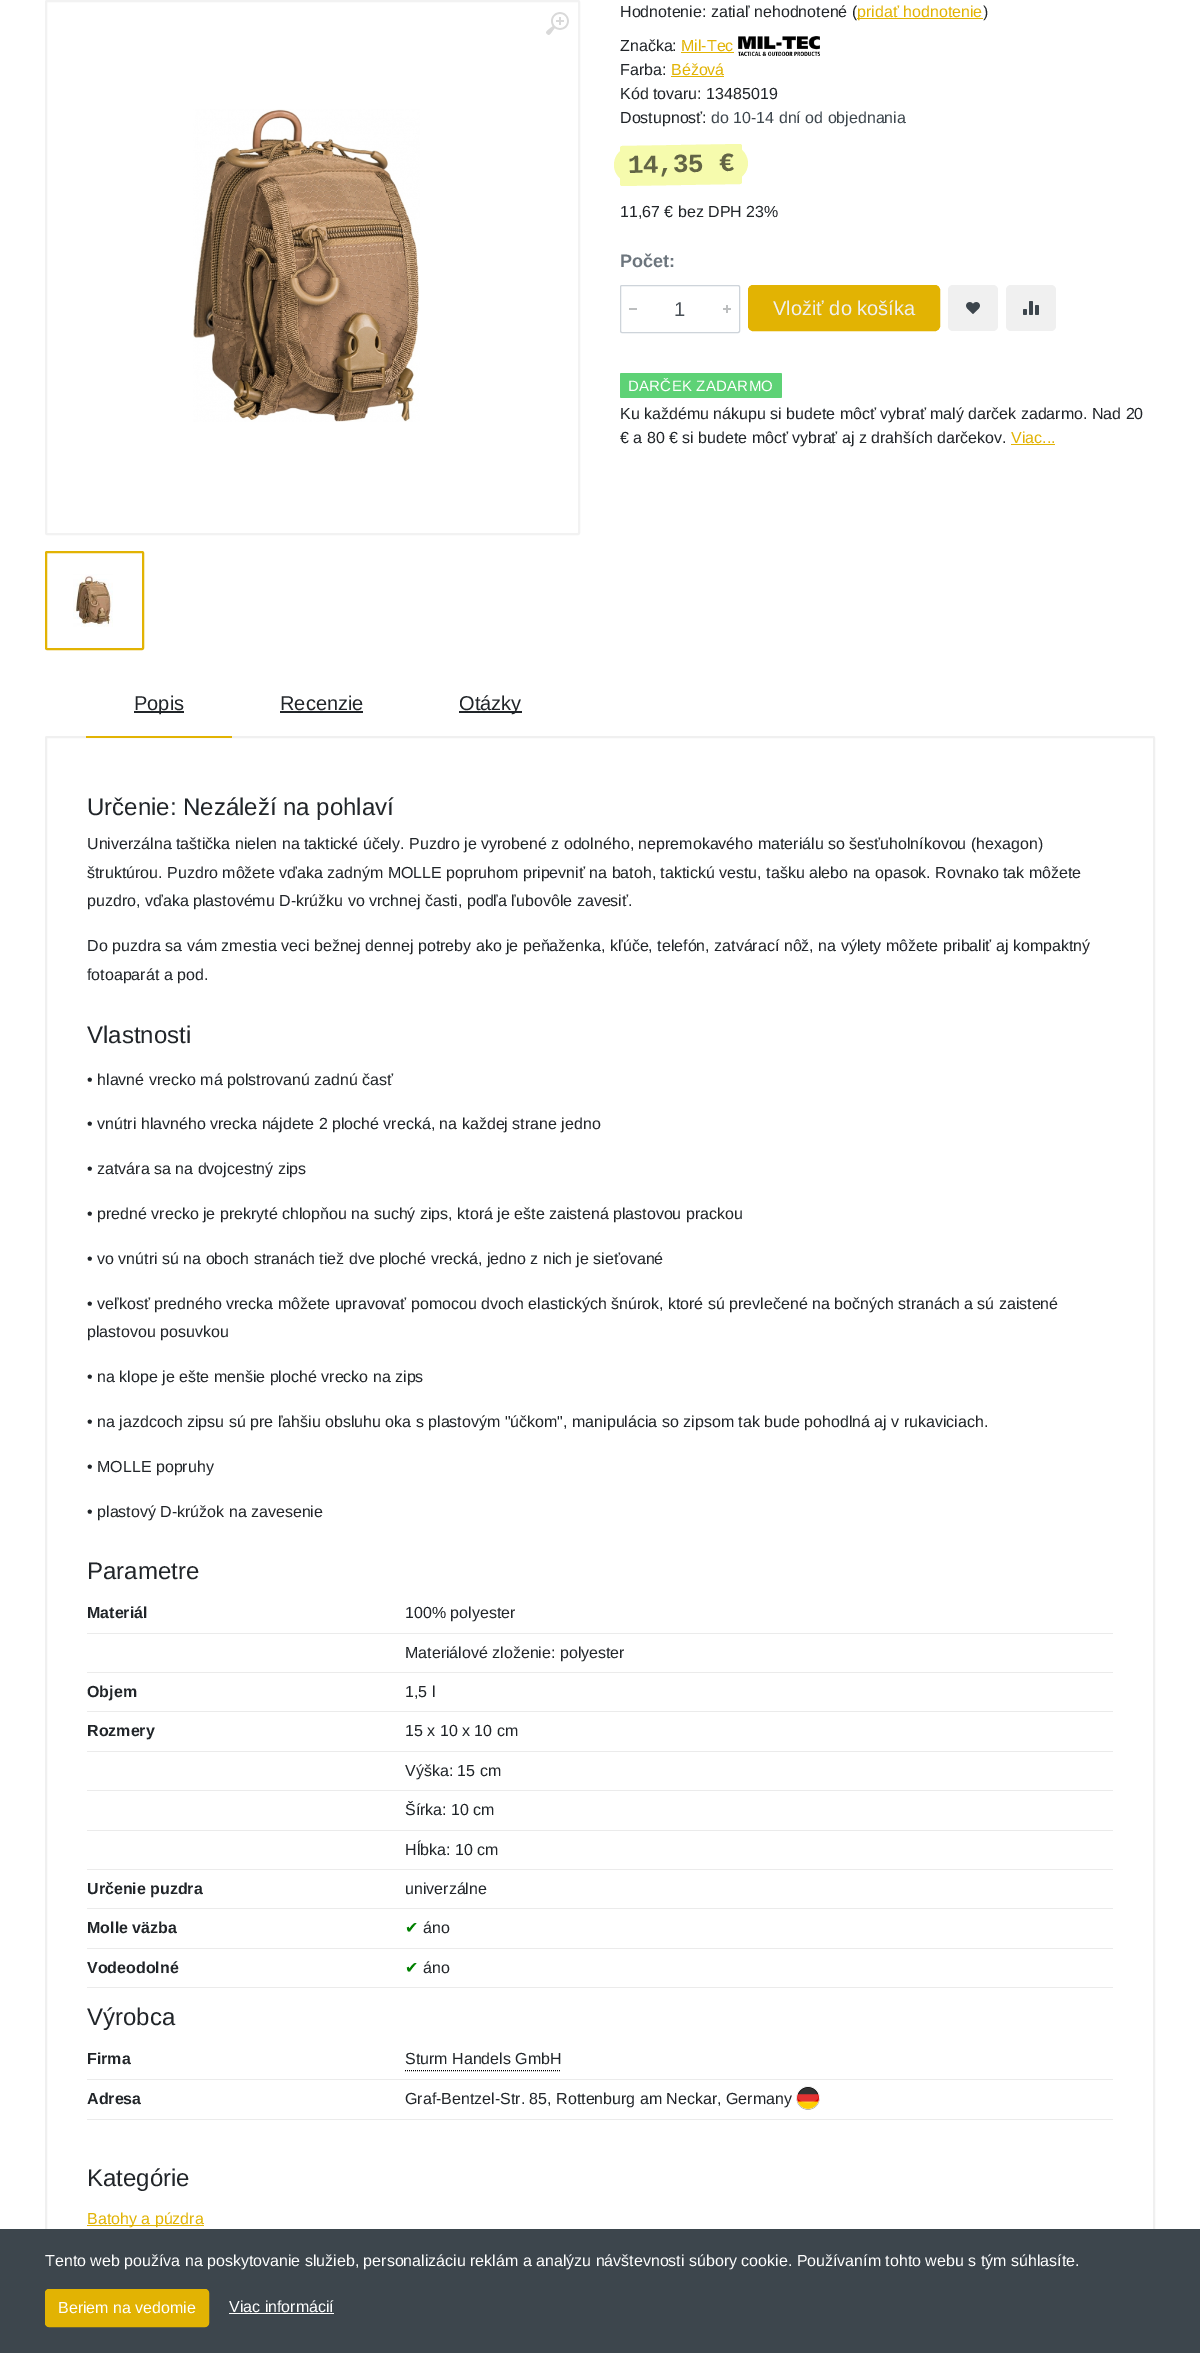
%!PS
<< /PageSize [1200 2353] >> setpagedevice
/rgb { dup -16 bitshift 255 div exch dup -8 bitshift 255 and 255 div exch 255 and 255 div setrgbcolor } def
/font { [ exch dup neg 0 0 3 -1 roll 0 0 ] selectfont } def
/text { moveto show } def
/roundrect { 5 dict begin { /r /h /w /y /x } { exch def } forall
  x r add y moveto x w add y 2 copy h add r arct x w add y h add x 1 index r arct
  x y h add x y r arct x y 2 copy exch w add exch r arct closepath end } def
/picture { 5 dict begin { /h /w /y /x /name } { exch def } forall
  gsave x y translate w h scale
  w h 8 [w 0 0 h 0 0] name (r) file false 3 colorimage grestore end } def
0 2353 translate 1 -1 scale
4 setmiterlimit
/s1 { /LiberationSans-Regular 16 font 16#212529 rgb } def
/s2 { /LiberationSans-Regular 16 font 16#E2B303 rgb } def
/s3 { /LiberationSans-Regular 16 font 16#3D464D rgb } def
/s4 { /LiberationSans-Bold 18 font 16#6C757D rgb } def
/s5 { /LiberationSans-Regular 20 font 16#495057 rgb } def
/s6 { /LiberationSans-Regular 20 font 16#F0F0F0 rgb } def
/s7 { /LiberationSans-Regular 20 font 16#212529 rgb } def
/s8 { /LiberationSans-Regular 24 font 16#212529 rgb } def
/s9 { /LiberationSans-Bold 16 font 16#212529 rgb } def
/s10 { /DejaVuSans-Regular 16 font 16#008000 rgb } def
/s11 { /LiberationSans-Regular 16 font 16#FFFFFF rgb } def
16#FFFFFF rgb
0 0 1200 2353 rectfill
16#F2F2F2 rgb
2 setlinewidth
46 1 533 533 1 roundrect stroke
(pic1.raw) 546 12 23 23 picture
(pic2.raw) 193 109 227 313 picture
16#E2B303 rgb
46 552 97 97 1 roundrect stroke
(pic3.raw) 73 574 40 53 picture
s1
(Hodnotenie:) 620 17 text
(zatiaľ nehodnotené \() 711 17 text
16#E2B303 rgb
857 18 126 1 rectfill
(pridať hodnotenie) 857 17 text
s1
(\)) 983 17 text
(Značka:) 620 51 text
s2
(Mil-Tec) 681 51 text
681 52 53 1 rectfill
(pic4.raw) 738 36 82 20 picture
s1
(Farba:) 620 75 text
s2
(Béžová) 671 75 text
671 76 53 1 rectfill
s1
(Kód tovaru: 13485019) 620 99 text
(Dostupnosť:) 620 123 text
s3
(do 10-14 dní od objednania) 711 123 text
16#F6FBAD rgb
622 146 moveto 740 144 lineto 741 144 742 145 742 146 curveto 742 182 lineto 742 183 741 184 740 184 curveto 622 186 lineto 621 186 620 185 620 184 curveto 620 148 lineto 620 147 621 146 622 146 curveto closepath fill
631.5 147 moveto 649.5 146.5 lineto 650.5 182.5 lineto 632.5 183 lineto 622.5 183 614 175 614 165 curveto 614 155 621.5 147 631.5 147 curveto closepath fill
711.5 145.5 moveto 729.5 145 lineto 739.5 145 747.5 153 748 163 curveto 748 173 740 181 730 181 curveto 712 181.5 lineto closepath fill
/LiberationMono-Bold 26 font
16#626445 rgb
gsave 628 173 translate -1 rotate 0 0 moveto -0.5 0 (14,35 €) ashow grestore
s1
(11,67 € bez DPH 23%) 620 217 text
s4
(Počet:) 620 267 text
16#CED4DA rgb
1 setlinewidth
620.5 285.5 119 47 1.5 roundrect stroke
16#BCBEBF rgb
629 308 8 2 rectfill
s5
(1) 674 316 text
16#BCBEBF rgb
723 308 8 2 rectfill
726 305 2 8 rectfill
16#E2B303 rgb
748.5 285.5 191 45 4.5 roundrect gsave fill grestore
stroke
s6
(Vložiť do košíka) 773 315 text
948 285 50 46 5 roundrect fill
(pic5.raw) 966 302 14 12 picture
1006 285 50 46 5 roundrect fill
(pic6.raw) 1023 301 16 14 picture
16#5ED276 rgb
620 373 162 25 1.5 roundrect fill
/LiberationSans-Regular 15 font
16#FFFFFF rgb
628 391 moveto 0.25 0 (DARČEK ZADARMO) ashow
s1
(Ku každému nákupu si budete môcť vybrať malý darček zadarmo. Nad 20) 620 419 text
(€ a 80 € si budete môcť vybrať aj z drahších darčekov.) 620 443 text
s2
(Viac...) 1011 443 text
1011 444 44 1 rectfill
16#F0F0F0 rgb
2 setlinewidth
46 737 1108 1583 1 roundrect stroke
16#E2B303 rgb
86 736 146 2 rectfill
16#212529 rgb
134 711 50 2 rectfill
s7
(Popis) 134 710 text
(Recenzie) 280 710 text
280 711 83 2 rectfill
459 711 63 2 rectfill
(Otázky) 459 710 text
s8
(Určenie: Nezáleží na pohlaví) 87 815 text
s1
(Univerzálna taštička nielen na taktické účely. Puzdro je vyrobené z odolného, nepremokavého materiálu so šesťuholníkovou \(hexagon\)) 87 849 text
(štruktúrou. Puzdro môžete vďaka zadným MOLLE popruhom pripevniť na batoh, taktickú vestu, tašku alebo na opasok. Rovnako tak môžete) 87 878 text
(puzdro, vďaka plastovému D-krúžku vo vrchnej časti, podľa ľubovôle zavesiť.) 87 906 text
(Do puzdra sa vám zmestia veci bežnej dennej potreby ako je peňaženka, kľúče, telefón, zatvárací nôž, na výlety môžete pribaliť aj kompaktný) 87 951 text
(fotoaparát a pod.) 87 980 text
s8
(Vlastnosti) 87 1043 text
s1
(• hlavné vrecko má polstrovanú zadnú časť) 87 1085 text
(• vnútri hlavného vrecka nájdete 2 ploché vrecká, na každej strane jedno) 87 1129 text
(• zatvára sa na dvojcestný zips) 87 1174 text
(• predné vrecko je prekryté chlopňou na suchý zips, ktorá je ešte zaistená plastovou prackou) 87 1219 text
(• vo vnútri sú na oboch stranách tiež dve ploché vrecká, jedno z nich je sieťované) 87 1264 text
(• veľkosť predného vrecka môžete upravovať pomocou dvoch elastických šnúrok, ktoré sú prevlečené na bočných stranách a sú zaistené) 87 1309 text
(plastovou posuvkou) 87 1337 text
(• na klope je ešte menšie ploché vrecko na zips) 87 1382 text
(• na jazdcoch zipsu sú pre ľahšiu obsluhu oka s plastovým "účkom", manipulácia so zipsom tak bude pohodlná aj v rukaviciach.) 87 1427 text
(• MOLLE popruhy) 87 1472 text
(• plastový D-krúžok na zavesenie) 87 1517 text
s8
(Parametre) 87 1579 text
16#EBEBEB rgb
87 1633 1026 1 rectfill
s9
(Materiál) 87 1618 text
s1
(100% polyester) 405 1618 text
16#EBEBEB rgb
87 1672 1026 1 rectfill
s1
(Materiálové zloženie: polyester) 405 1658 text
16#EBEBEB rgb
87 1711 1026 1 rectfill
s9
(Objem) 87 1697 text
s1
(1,5 l) 405 1697 text
16#EBEBEB rgb
87 1751 1026 1 rectfill
s9
(Rozmery) 87 1736 text
s1
(15 x 10 x 10 cm) 405 1736 text
16#EBEBEB rgb
87 1790 1026 1 rectfill
s1
(Výška: 15 cm) 405 1776 text
16#EBEBEB rgb
87 1830 1026 1 rectfill
s1
(Šírka: 10 cm) 405 1815 text
16#EBEBEB rgb
87 1869 1026 1 rectfill
s1
(Hĺbka: 10 cm) 405 1855 text
16#EBEBEB rgb
87 1908 1026 1 rectfill
s9
(Určenie puzdra) 87 1894 text
s1
(univerzálne) 405 1894 text
16#EBEBEB rgb
87 1948 1026 1 rectfill
s9
(Molle väzba) 87 1933 text
s10
(✔) 405 1933 text
s1
(áno) 423 1933 text
16#EBEBEB rgb
87 1987 1026 1 rectfill
s9
(Vodeodolné) 87 1973 text
s10
(✔) 405 1973 text
s1
(áno) 423 1973 text
s8
(Výrobca) 87 2025 text
16#EBEBEB rgb
87 2079 1026 1 rectfill
s9
(Firma) 87 2064 text
16#000000 rgb
1 setlinewidth
[1 1] 0 setdash
405 2070.5 moveto 561 2070.5 lineto stroke
s1
(Sturm Handels GmbH) 405 2064 text
16#EBEBEB rgb
87 2119 1026 1 rectfill
s9
(Adresa) 87 2104 text
s1
(Graf-Bentzel-Str. 85, Rottenburg am Neckar, Germany) 405 2104 text
(pic7.raw) 796 2086 24 24 picture
s8
(Kategórie) 87 2186 text
16#E2B303 rgb
87 2225 117 1 rectfill
s2
(Batohy a púzdra) 87 2224 text
16#3D464D rgb
0 2229 1200 124 rectfill
s11
(Tento web používa na poskytovanie služieb, personalizáciu reklám a analýzu návštevnosti súbory cookie. Používaním tohto webu s tým súhlasíte.) 45 2266 text
16#E2B303 rgb
45.5 2289.5 163 37 3.5 roundrect gsave fill grestore
[] 0 setdash
stroke
s11
(Beriem na vedomie) 58 2313 text
(Viac informácií) 229 2312 text
229 2313 105 1 rectfill
showpage
